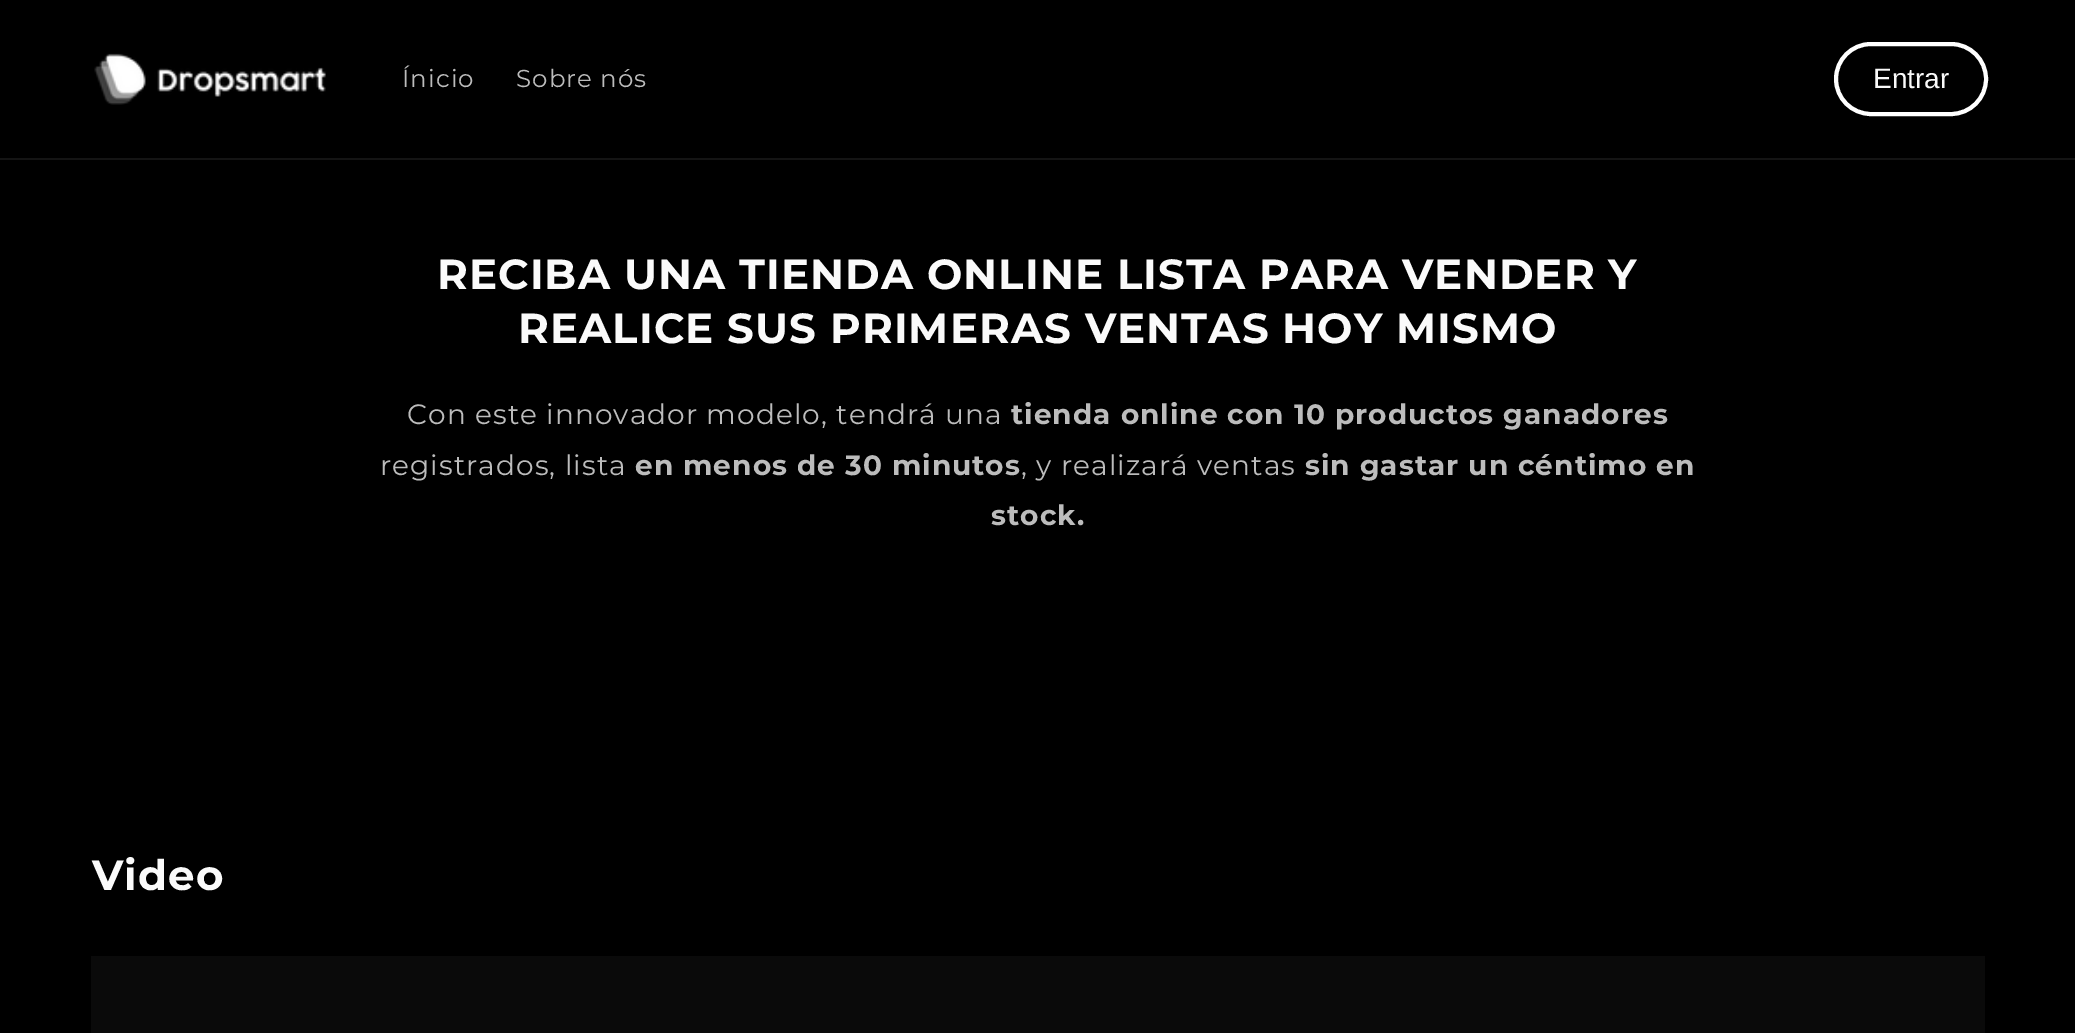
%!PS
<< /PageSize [2075 1033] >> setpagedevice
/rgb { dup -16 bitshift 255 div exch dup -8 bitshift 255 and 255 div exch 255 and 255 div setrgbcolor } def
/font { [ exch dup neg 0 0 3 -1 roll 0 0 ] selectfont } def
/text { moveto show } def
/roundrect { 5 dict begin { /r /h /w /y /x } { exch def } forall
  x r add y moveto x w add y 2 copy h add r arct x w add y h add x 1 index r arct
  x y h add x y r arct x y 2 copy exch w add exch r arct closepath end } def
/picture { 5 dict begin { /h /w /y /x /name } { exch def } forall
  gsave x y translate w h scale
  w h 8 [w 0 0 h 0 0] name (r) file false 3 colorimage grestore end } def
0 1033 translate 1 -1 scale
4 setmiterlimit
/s1 { /LiberationSans-Regular 28 font 16#FAFAFA rgb } def
16#000000 rgb
0 0 2075 1033 rectfill
16#141414 rgb
0 158 2075 2 rectfill
(pic1.raw) 94 53 232 52 picture
/Montserrat-Regular 24.5 font
16#BCBCBC rgb
402 87 moveto 1.05 0 (Ínicio) ashow
516 87 moveto 1.05 0 (Sobre nós) ashow
16#FFFFFF rgb
4 setlinewidth
1836 44 150 70 35 roundrect stroke
s1
(Entrar) 1873 88 text
/Montserrat-Bold 42 font
437 289 moveto 1.05 0 (RECIBA UNA TIENDA ONLINE LISTA PARA VENDER Y) ashow
518 343 moveto 1.05 0 (REALICE SUS PRIMERAS VENTAS HOY MISMO) ashow
/Montserrat-Regular 28 font
16#BCBCBC rgb
407 424 moveto 1.05 0 (Con este innovador modelo, tendrá una) ashow
/Montserrat-Bold 28 font
1011 424 moveto 1.05 0 (tienda online con 10 productos ganadores) ashow
/Montserrat-Regular 28 font
380 475 moveto 1.05 0 (registrados, lista) ashow
/Montserrat-Bold 28 font
635 475 moveto 1.05 0 (en menos de 30 minutos) ashow
/Montserrat-Regular 28 font
1021 475 moveto 1.05 0 (, y realizará ventas) ashow
/Montserrat-Bold 28 font
1305 475 moveto 1.05 0 (sin gastar un céntimo en) ashow
991 525 moveto 1.05 0 (stock.) ashow
/Montserrat-Bold 42 font
16#FAFAFA rgb
92 890 moveto 1.05 0 (Video) ashow
16#0A0A0A rgb
91 956 1894 77 rectfill
showpage
